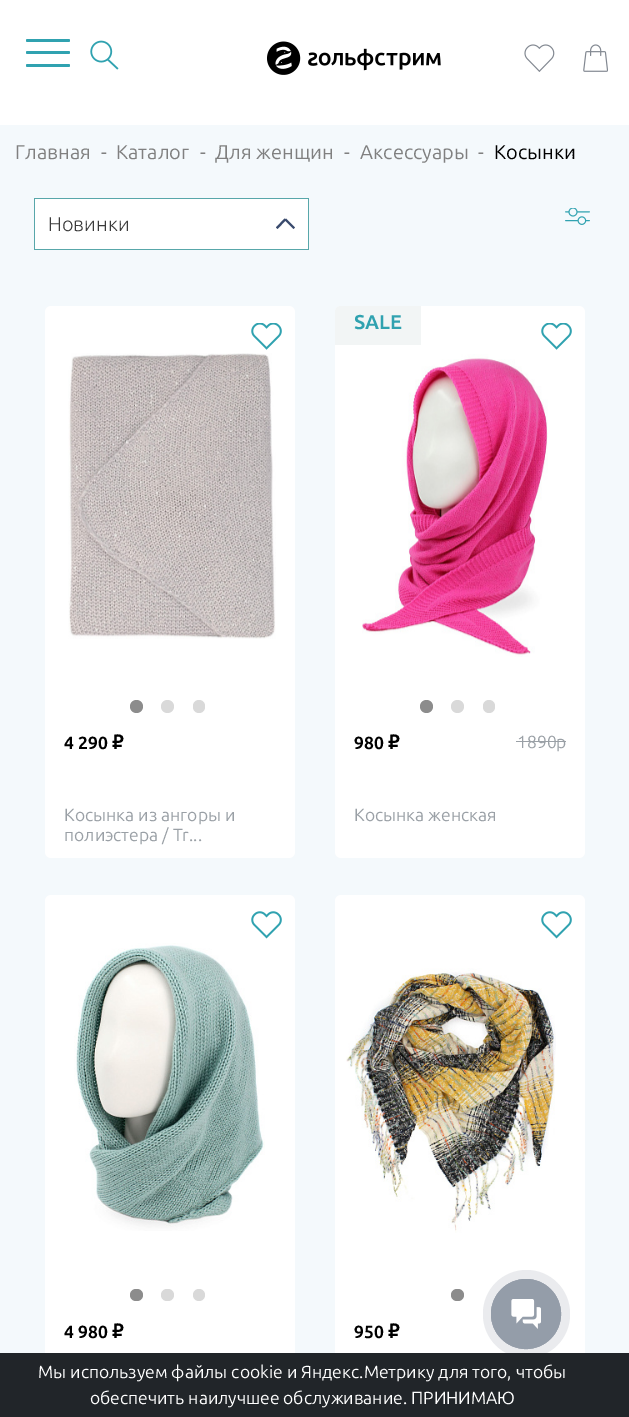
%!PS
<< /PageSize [629 1417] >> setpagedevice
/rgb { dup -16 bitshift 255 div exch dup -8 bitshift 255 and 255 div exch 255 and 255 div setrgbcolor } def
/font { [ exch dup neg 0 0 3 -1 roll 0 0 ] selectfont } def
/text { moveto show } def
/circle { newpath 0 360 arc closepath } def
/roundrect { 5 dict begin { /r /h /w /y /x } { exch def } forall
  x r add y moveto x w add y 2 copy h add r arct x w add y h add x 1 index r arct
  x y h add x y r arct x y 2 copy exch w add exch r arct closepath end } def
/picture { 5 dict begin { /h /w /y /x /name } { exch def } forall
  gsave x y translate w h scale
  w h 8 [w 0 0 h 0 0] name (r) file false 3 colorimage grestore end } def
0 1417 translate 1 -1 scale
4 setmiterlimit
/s1 { /Ubuntu-Regular 20 font 16#808080 rgb } def
/s2 { /Ubuntu-Regular 20 font 16#000000 rgb } def
/s3 { /Ubuntu-Light 20 font 16#3B3B3B rgb } def
/s4 { /Ubuntu-Bold 17.5 font 16#000000 rgb } def
/s5 { /Ubuntu-Bold 21 font 16#000000 rgb } def
/s6 { /Ubuntu-Regular 17.5 font 16#9AA0A6 rgb } def
/s7 { /Ubuntu-Bold 20 font 16#30A2B0 rgb } def
/s8 { /Ubuntu-Regular 17.5 font 16#FFFFFF rgb } def
16#F4F9FC rgb
0 0 629 1417 rectfill
16#FFFFFF rgb
0 0 629 125 rectfill
16#30A2B0 rgb
26 39 44 3 1.5 roundrect fill
26 51 44 3 1.5 roundrect fill
26 64 44 3 1.5 roundrect fill
(pic1.raw) 90 40 29 30 picture
(pic2.raw) 267 41 174 34 picture
(pic3.raw) 524 44 31 28 picture
(pic4.raw) 583 44 25 28 picture
s1
(Главная) 15 159 text
(-) 101 159 text
(Каталог) 116 159 text
(-) 200 159 text
(Для женщин) 215 159 text
(-) 344 159 text
(Аксессуары) 360 159 text
(-) 478 159 text
s2
(Косынки) 494 159 text
16#58A7AA rgb
308 198 1 52 rectfill
34 198 1 52 rectfill
16#FFFFFF rgb
35 199 273 50 rectfill
16#58A7AA rgb
35 198 273 1 rectfill
35 249 273 1 rectfill
s3
(Новинки) 48 231 text
16#394A6D rgb
284.5 218.5 moveto 286 220 lineto 277.5 229 lineto 276 227.5 lineto closepath fill
284.5 220 moveto 286 218.5 lineto 295 227.5 lineto 293.5 229 lineto closepath fill
(pic5.raw) 565 208 25 17 picture
16#FFFFFF rgb
45 306 250 552 6 roundrect fill
(pic6.raw) 251 323 31 27 picture
(pic7.raw) 68 353 208 286 picture
16#8C8C8C rgb
136.5 706.5 6.5 circle fill
16#D9D9D9 rgb
167.5 706.5 6.5 circle fill
193 700 12 13 6 roundrect fill
s4
(4 290) 64 749 text
s5
(₽) 112 749 text
s6
(Косынка из ангоры и) 64 821 text
(полиэстера / Tr...) 64 841 text
16#FFFFFF rgb
335 306 250 552 6 roundrect fill
16#F2F5F5 rgb
341 306 moveto 421 306 lineto 421 345 lineto 335 345 lineto 335 312 lineto 335 308.5 337.5 306 341 306 curveto closepath fill
s7
(SALE) 354 329 text
(pic6.raw) 541 323 31 27 picture
(pic8.raw) 362 354 186 303 picture
16#8C8C8C rgb
426.5 706.5 6.5 circle fill
16#D9D9D9 rgb
457.5 706.5 6.5 circle fill
483 700 12 13 6 roundrect fill
s4
(980) 354 749 text
s5
(₽) 388 749 text
s6
(1890р) 517 748 text
516 741 50 1 rectfill
(Косынка женская) 354 821 text
16#FFFFFF rgb
45 895 250 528 6 roundrect fill
(pic9.raw) 251 911 31 28 picture
(pic10.raw) 74 943 191 288 picture
16#8C8C8C rgb
130 1289 13 12 6 roundrect fill
16#D9D9D9 rgb
161 1289 13 12 6 roundrect fill
199 1295 6 circle fill
s4
(4 980) 64 1338 text
s5
(₽) 112 1338 text
16#FFFFFF rgb
335 895 250 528 6 roundrect fill
(pic9.raw) 541 911 31 28 picture
(pic11.raw) 346 968 210 265 picture
16#8C8C8C rgb
451 1289 13 12 6 roundrect fill
s4
(950) 354 1338 text
s5
(₽) 388 1338 text
16#EAEBEE rgb
483 1270 87 88 43.5 roundrect fill
16#949DA9 rgb
526 1314 34.5 circle stroke
526 1314 35 circle fill
(pic12.raw) 511 1299 30 30 picture
16#212529 rgb
0 1353 629 64 rectfill
s8
(Мы используем файлы cookie и Яндекс.Метрику для того, чтобы) 38 1378 text
(обеспечить наилучшее обслуживание. ПРИНИМАЮ) 90 1404 text
showpage
